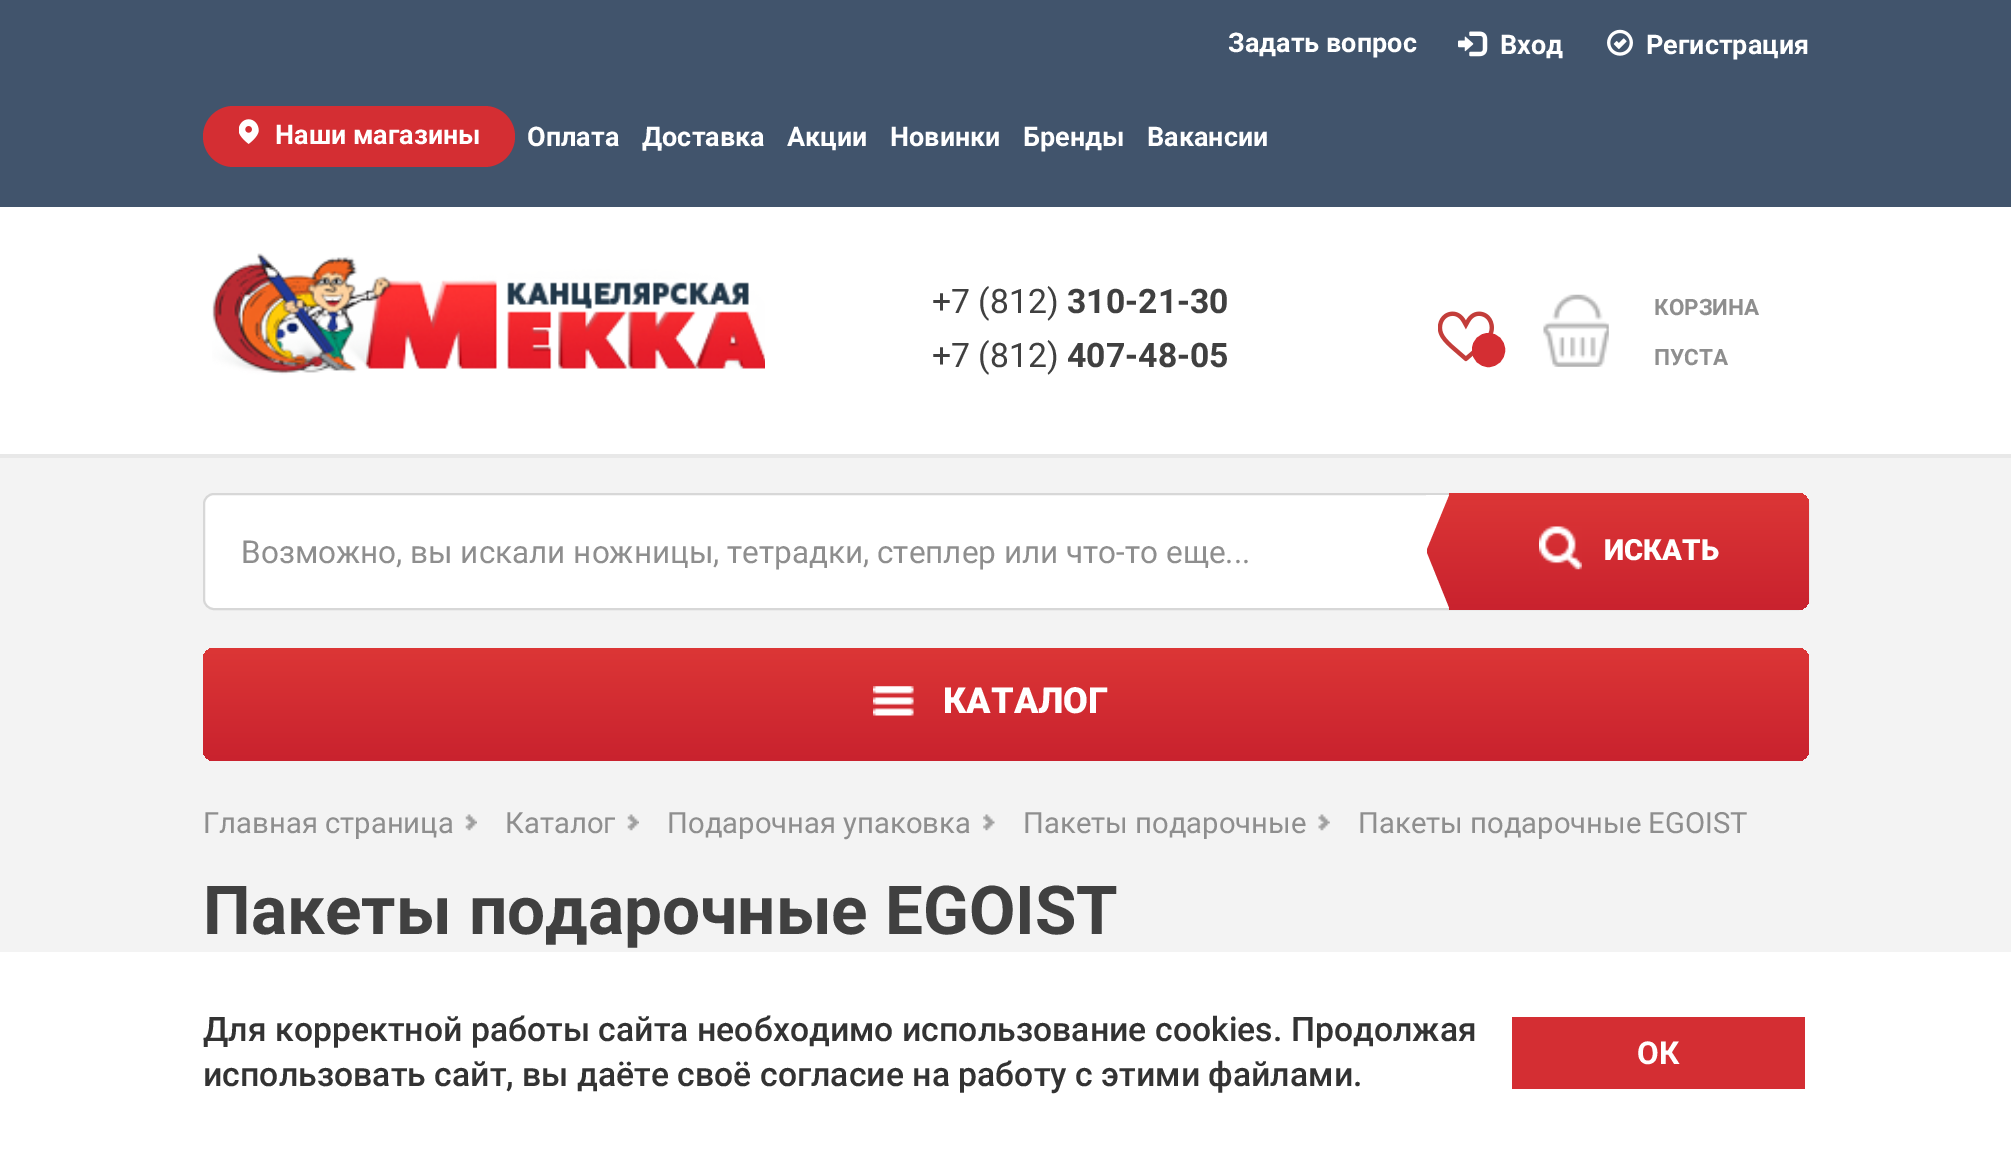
%!PS
<< /PageSize [2011 1154] >> setpagedevice
/rgb { dup -16 bitshift 255 div exch dup -8 bitshift 255 and 255 div exch 255 and 255 div setrgbcolor } def
/font { [ exch dup neg 0 0 3 -1 roll 0 0 ] selectfont } def
/text { moveto show } def
/roundrect { 5 dict begin { /r /h /w /y /x } { exch def } forall
  x r add y moveto x w add y 2 copy h add r arct x w add y h add x 1 index r arct
  x y h add x y r arct x y 2 copy exch w add exch r arct closepath end } def
/picture { 5 dict begin { /h /w /y /x /name } { exch def } forall
  gsave x y translate w h scale
  w h 8 [w 0 0 h 0 0] name (r) file false 3 colorimage grestore end } def
0 1154 translate 1 -1 scale
4 setmiterlimit
/s1 { /Roboto-Bold 27 font 16#FFFFFF rgb } def
/s2 { /Roboto-Regular 33.75 font 16#404040 rgb } def
/s3 { /Roboto-Bold 33.75 font 16#404040 rgb } def
/s4 { /Roboto-Bold 22.5 font 16#8E8E8E rgb } def
/s5 { /Roboto-Regular 31.5 font 16#8E8E8E rgb } def
/s6 { /Roboto-Black 29.25 font 16#FFFFFF rgb } def
/s7 { /Roboto-Black 36 font 16#FFFFFF rgb } def
/s8 { /Roboto-Regular 29.25 font 16#8E8E8E rgb } def
/s9 { /Roboto-Bold 67.5 font 16#404040 rgb } def
/s10 { /Roboto-Medium 33.75 font 16#333333 rgb } def
/s11 { /Roboto-Bold 31.5 font 16#FFFFFF rgb } def
16#F3F3F3 rgb
0 0 2011 1154 rectfill
16#41546C rgb
0 0 2011 207 rectfill
s1
(Задать вопрос) 1228 52 text
(pic1.raw) 1458 31 30 26 picture
(Вход) 1500 54 text
(pic2.raw) 1607 29 26 27 picture
(Регистрация) 1646 54 text
16#D42E33 rgb
203 106 312 61 30.5 roundrect fill
(pic3.raw) 239 119 20 25 picture
s1
(Наши магазины) 275 144 text
(Оплата) 527 146 text
(Доставка) 642 146 text
(Акции) 787 146 text
(Новинки) 890 146 text
(Бренды) 1023 146 text
(Вакансии) 1147 146 text
0 207 2011 247 rectfill
(pic4.raw) 212 253 553 122 picture
s2
(+7 \(812\)) 932 313 text
s3
(310-21-30) 1067 313 text
s2
(+7 \(812\)) 932 367 text
s3
(407-48-05) 1067 367 text
(pic5.raw) 1438 311 56 51 picture
16#D42E33 rgb
1474.5 335.5 28 29 14 roundrect gsave fill grestore
5 setlinewidth
stroke
(pic6.raw) 1543 294 66 73 picture
s4
(КОРЗИНА) 1654 315 text
(ПУСТА) 1654 365 text
16#E8E8E8 rgb
0 454 2011 4 rectfill
16#FFFFFF rgb
203 493 1606 117 14 roundrect fill
16#D7D7D7 rgb
2 setlinewidth
204 494 1604 115 10 roundrect stroke
gsave 1427 493 moveto 1798 493 lineto 1804 493 1809 498 1809 504 curveto 1809 599 lineto 1809 605 1804 610 1798 610 curveto 1427 610 lineto closepath clip newpath
<< /ShadingType 2 /ColorSpace /DeviceRGB /Coords [1618 493 1618 610] /Extend [true true] /Function << /FunctionType 2 /Domain [0 1] /C0 [0.863 0.212 0.212] /C1 [0.788 0.133 0.18] /N 1 >> >> shfill grestore
1427 493 22 2 rectfill
s5
(Возможно, вы искали ножницы, тетрадки, степлер или что-то еще...) 241 563 text
16#FFFFFF rgb
1426 551 moveto 1426 495 lineto 1449 495 lineto closepath fill
(pic7.raw) 1539 526 43 44 picture
s6
(ИСКАТЬ) 1604 560 text
1426 608 moveto 1426 551 lineto 1449 608 lineto closepath fill
16#D7D7D7 rgb
1427 608 22 2 rectfill
gsave 203 648 1606 113 11 roundrect clip newpath
<< /ShadingType 2 /ColorSpace /DeviceRGB /Coords [1006 648 1006 761] /Extend [true true] /Function << /FunctionType 2 /Domain [0 1] /C0 [0.863 0.212 0.212] /C1 [0.788 0.133 0.18] /N 1 >> >> shfill grestore
(pic8.raw) 873 686 41 30 picture
s7
(КАТАЛОГ) 943 713 text
s8
(Главная страница) 203 833 text
(pic9.raw) 465 814 12 17 picture
(Каталог) 505 833 text
(pic10.raw) 627 814 12 17 picture
(Подарочная упаковка) 667 833 text
(pic11.raw) 983 814 12 17 picture
(Пакеты подарочные) 1023 833 text
(pic12.raw) 1318 814 12 17 picture
(Пакеты подарочные EGOIST) 1358 833 text
s9
(Пакеты подарочные EGOIST) 203 934 text
16#FFFFFF rgb
0 952 2011 202 rectfill
s10
(Для корректной работы сайта необходимо использование cookies. Продолжая) 203 1041 text
(использовать сайт, вы даёте своё согласие на работу с этими файлами.) 203 1086 text
16#D42E33 rgb
1512 1017 293 72 rectfill
s11
(ОК) 1637 1064 text
showpage
